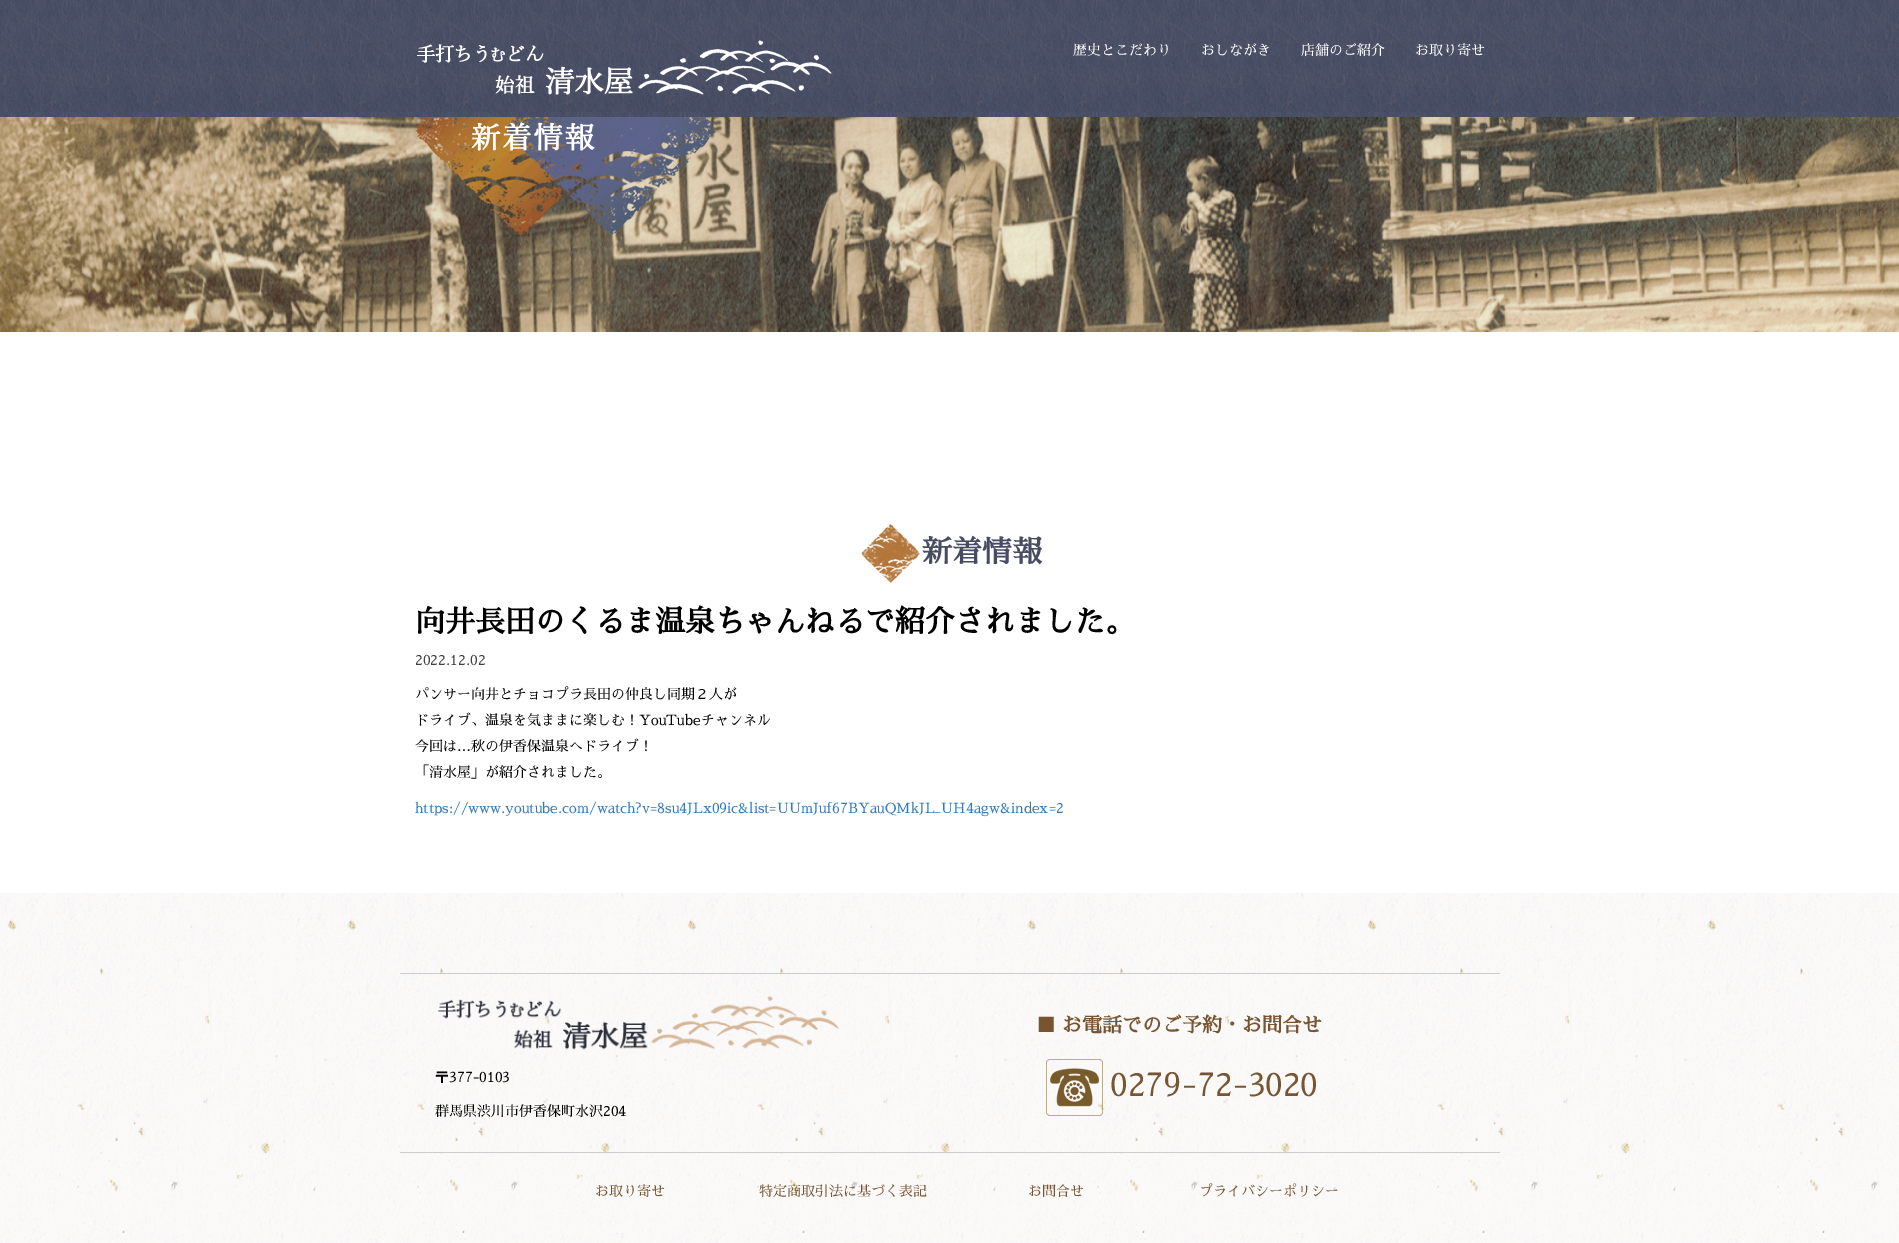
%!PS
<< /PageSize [1899 1243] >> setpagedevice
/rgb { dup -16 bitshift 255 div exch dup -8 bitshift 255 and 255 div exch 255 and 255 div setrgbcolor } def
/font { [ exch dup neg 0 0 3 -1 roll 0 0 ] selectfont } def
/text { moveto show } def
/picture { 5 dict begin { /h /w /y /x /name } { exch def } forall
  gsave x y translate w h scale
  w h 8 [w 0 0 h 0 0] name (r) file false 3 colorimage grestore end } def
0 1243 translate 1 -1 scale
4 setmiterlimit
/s1 { /SawarabiMincho-Regular 14 font 16#FFFFFF rgb } def
/s2 { /SawarabiMincho-Bold 30 font 16#474C62 rgb } def
/s3 { /SawarabiMincho-Bold 30 font 16#000000 rgb } def
/s4 { /SawarabiMincho-Regular 14 font 16#414141 rgb } def
/s5 { /SawarabiMincho-Regular 14 font 16#000000 rgb } def
/s6 { /SawarabiMincho-Regular 14 font 16#337AB7 rgb } def
/s7 { /SawarabiMincho-Bold 20 font 16#785430 rgb } def
/s8 { /SawarabiMincho-Regular 32 font 16#785430 rgb } def
/s9 { /SawarabiMincho-Regular 14 font 16#785430 rgb } def
16#FFFFFF rgb
0 0 1899 1243 rectfill
(pic1.raw) 0 0 1899 117 picture
(pic2.raw) 417 40 415 55 picture
s1
(歴史とこだわり) 1073 55 text
(おしながき) 1201 55 text
(店舗のご紹介) 1301 55 text
(お取り寄せ) 1415 55 text
(pic3.raw) 0 117 1899 215 picture
(pic4.raw) 415 117 301 119 picture
(pic5.raw) 861 524 59 59 picture
s2
(新着情報) 922 562 text
s3
(向井長田のくるま温泉ちゃんねるで紹介されました。) 415 632 text
s4
(2022.12.02) 415 665 text
s5
(パンサー向井とチョコプラ長田の仲良し同期２人が) 415 699 text
(ドライブ、温泉を気ままに楽しむ！YouTubeチャンネル) 415 725 text
(今回は…秋の伊香保温泉へドライブ！) 415 751 text
(「清水屋」が紹介されました。) 415 777 text
s6
(https://www.youtube.com/watch?v=8su4JLx09ic&list=UUmJuf67BYauQMkJL_UH4agw&index=2) 415 813 text
(pic6.raw) 0 893 1899 350 picture
16#CCCCCC rgb
400 973 1100 1 rectfill
(pic7.raw) 438 996 401 54 picture
s5
(〒377-0103) 435 1082 text
(群馬県渋川市伊香保町水沢204) 435 1116 text
s7
(■ お電話でのご予約・お問合せ) 1036 1032 text
(pic8.raw) 1046 1059 57 57 picture
s8
(0279-72-3020) 1110 1096 text
16#CCCCCC rgb
400 1152 1100 1 rectfill
s9
(お取り寄せ) 595 1196 text
(特定商取引法に基づく表記) 759 1196 text
(お問合せ) 1028 1196 text
(プライバシーポリシー) 1199 1196 text
showpage
